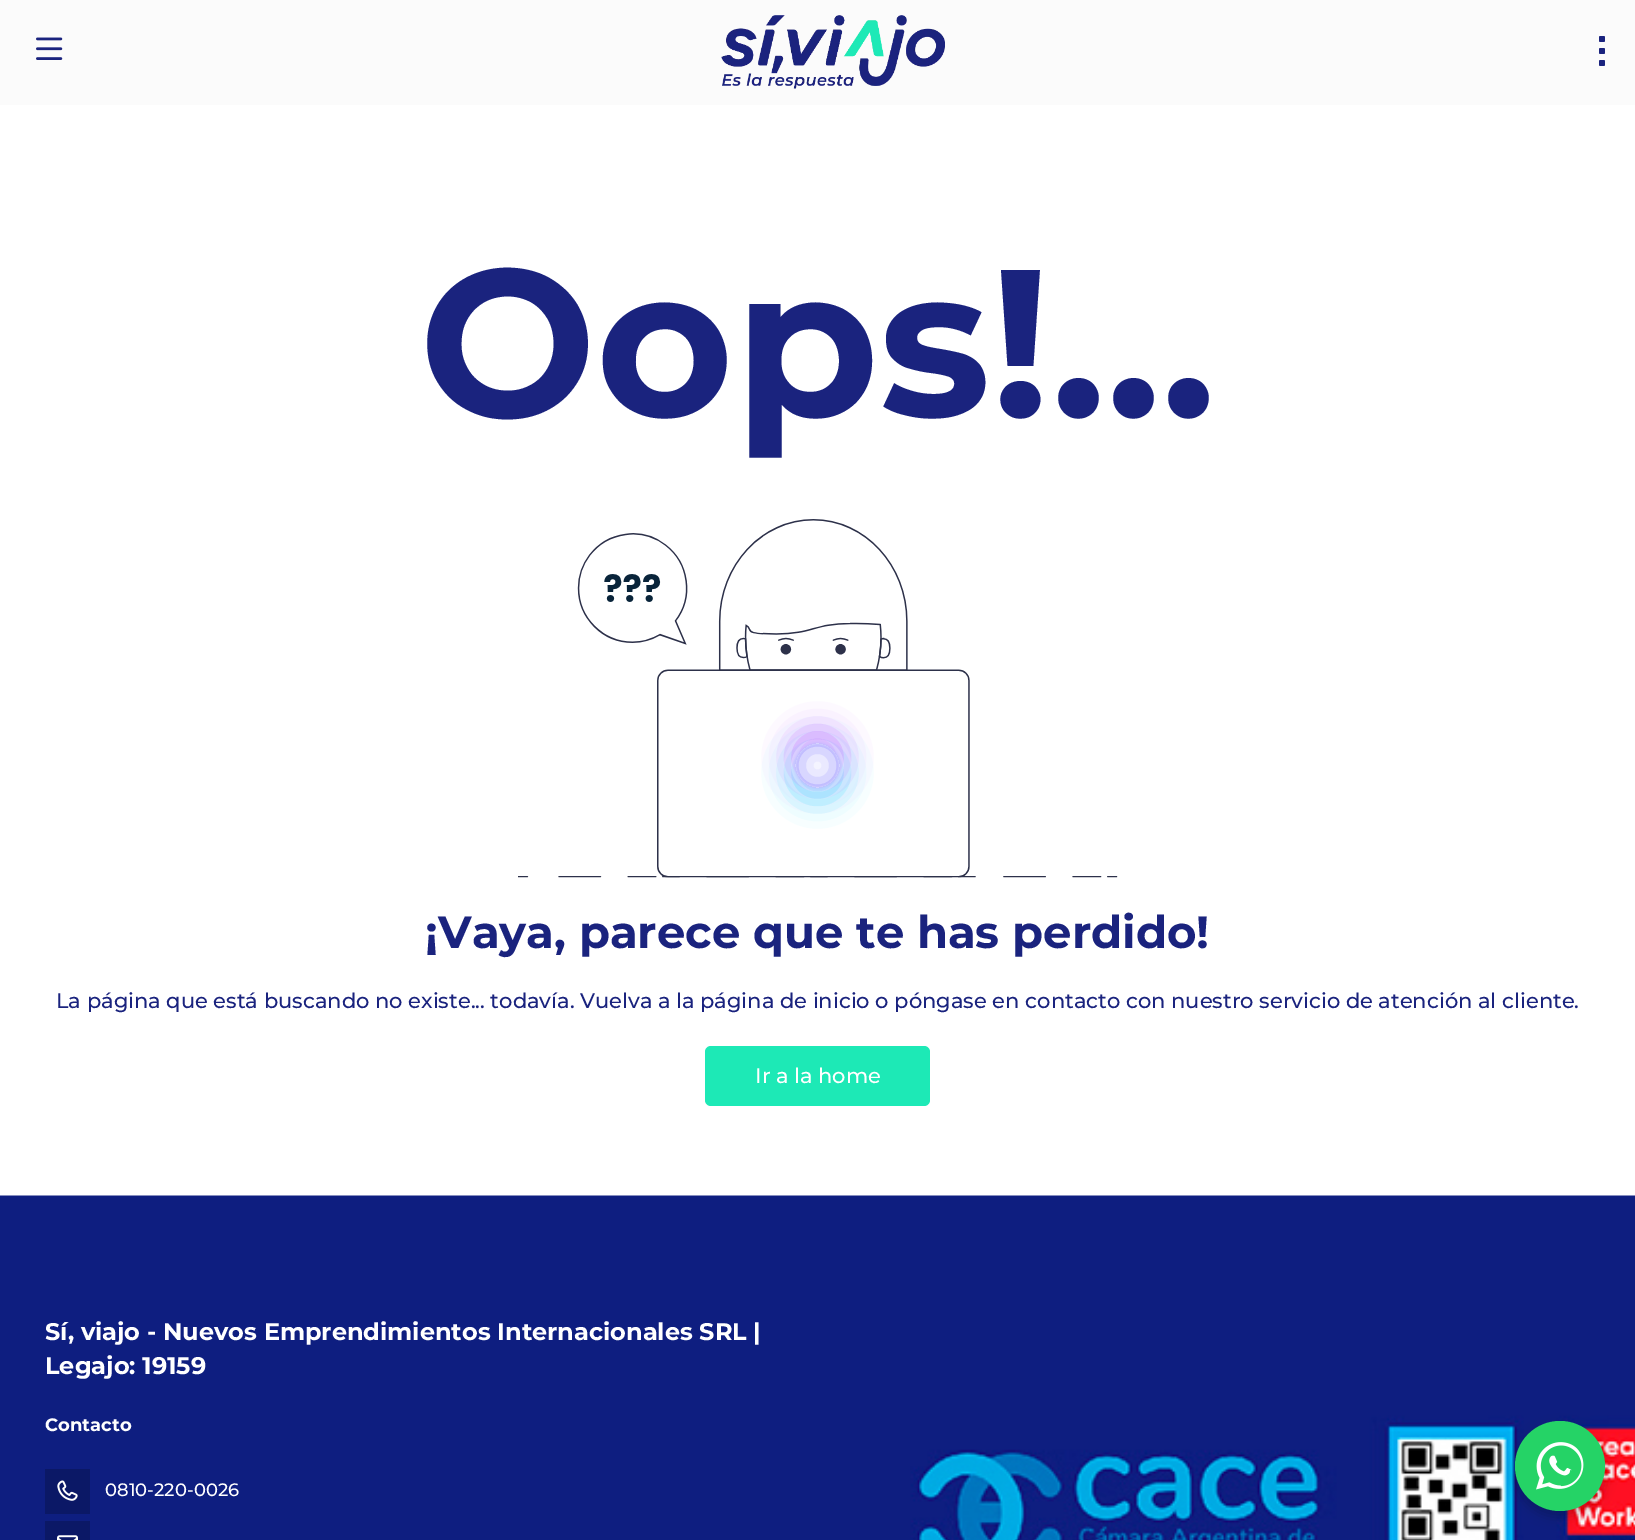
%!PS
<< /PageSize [1635 1540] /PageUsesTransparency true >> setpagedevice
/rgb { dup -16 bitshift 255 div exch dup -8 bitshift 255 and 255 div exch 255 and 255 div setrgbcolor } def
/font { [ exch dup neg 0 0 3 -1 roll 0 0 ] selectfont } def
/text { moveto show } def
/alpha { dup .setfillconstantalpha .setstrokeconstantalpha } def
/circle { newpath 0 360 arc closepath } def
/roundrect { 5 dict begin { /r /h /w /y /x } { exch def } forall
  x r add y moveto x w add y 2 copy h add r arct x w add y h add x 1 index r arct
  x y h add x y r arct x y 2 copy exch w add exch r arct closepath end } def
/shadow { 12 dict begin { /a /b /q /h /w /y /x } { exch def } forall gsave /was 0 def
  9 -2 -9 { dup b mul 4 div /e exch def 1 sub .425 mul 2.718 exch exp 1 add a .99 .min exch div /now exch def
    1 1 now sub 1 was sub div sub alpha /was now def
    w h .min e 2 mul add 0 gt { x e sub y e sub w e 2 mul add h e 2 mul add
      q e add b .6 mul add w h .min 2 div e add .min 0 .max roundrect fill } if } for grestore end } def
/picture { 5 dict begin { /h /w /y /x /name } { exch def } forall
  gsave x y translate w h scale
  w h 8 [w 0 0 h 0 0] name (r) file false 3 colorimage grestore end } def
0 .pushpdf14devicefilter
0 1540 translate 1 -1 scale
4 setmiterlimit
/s1 { /Montserrat-Bold 210 font 16#1A237E rgb } def
/s2 { /Montserrat-Bold 45 font 16#1A237E rgb } def
/s3 { /Montserrat-Medium 21 font 16#1A237E rgb } def
/s4 { /Montserrat-Medium 21 font 16#FFFFFF rgb } def
/s5 { /Montserrat-Bold 24 font 16#FFFFFF rgb } def
/s6 { /Montserrat-Bold 18 font 16#FFFFFF rgb } def
/s7 { /Montserrat-Medium 18 font 16#FFFFFF rgb } def
16#FFFFFF rgb
0 0 1635 1540 rectfill
16#FBFBFB rgb
0 0 1635 105 rectfill
(pic1.raw) 36 37 27 23 picture
(pic2.raw) 721 15 224 74 picture
16#1A237E rgb
1599 36 6 6 1.5 roundrect fill
1599 48 6 6 1.5 roundrect fill
1599 60 6 6 1.5 roundrect fill
s1
(Oops!...) 419 417 text
(pic3.raw) 518 519 600 359 picture
gsave
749 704 moveto 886 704 lineto 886 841 lineto 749 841 lineto closepath 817.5 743 moveto 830 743 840 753 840 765.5 curveto 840 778 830 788 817.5 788 curveto 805 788 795 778 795 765.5 curveto 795 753 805 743 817.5 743 curveto closepath eoclip newpath
16#00E1FF rgb
795 750 45 45 22.5 15 1 shadow
grestore
gsave
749 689 moveto 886 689 lineto 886 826 lineto 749 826 lineto closepath 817.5 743 moveto 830 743 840 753 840 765.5 curveto 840 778 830 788 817.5 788 curveto 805 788 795 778 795 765.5 curveto 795 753 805 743 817.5 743 curveto closepath eoclip newpath
16#BA42FF rgb
795 735 45 45 22.5 15 1 shadow
grestore
16#7E76FF rgb
795 743 45 45 22.5 1.5 1 shadow
16#FFFFFF rgb
795 743 45 45 22.5 15 1 shadow
s2
(¡Vaya, parece que te has perdido!) 425 948 text
s3
(La página que está buscando no existe... todavía. Vuelva a la página de inicio o póngase en contacto con nuestro servicio de atención al cliente.) 56 1008 text
16#1DE9B6 rgb
705 1046 225 60 6 roundrect fill
s4
(Ir a la home) 755 1083 text
(pic4.raw) 0 1195 1635 345 picture
s5
(Sí, viajo - Nuevos Emprendimientos Internacionales SRL |) 45 1340 text
(Legajo: 19159) 45 1374 text
s6
(Contacto) 45 1431 text
16#0B1866 rgb
45 1469 45 45 rectfill
(pic5.raw) 57 1480 21 21 picture
s7
(0810-220-0026) 105 1496 text
16#0B1866 rgb
45 1521 45 19 rectfill
(pic6.raw) 57 1535 21 5 picture
16#000000 rgb
1515 1427 90 90 45 6 0.2 shadow
16#25D366 rgb
1560 1466 45 circle fill
(pic7.raw) 1536 1442 48 48 picture
.poppdf14devicefilter showpage
